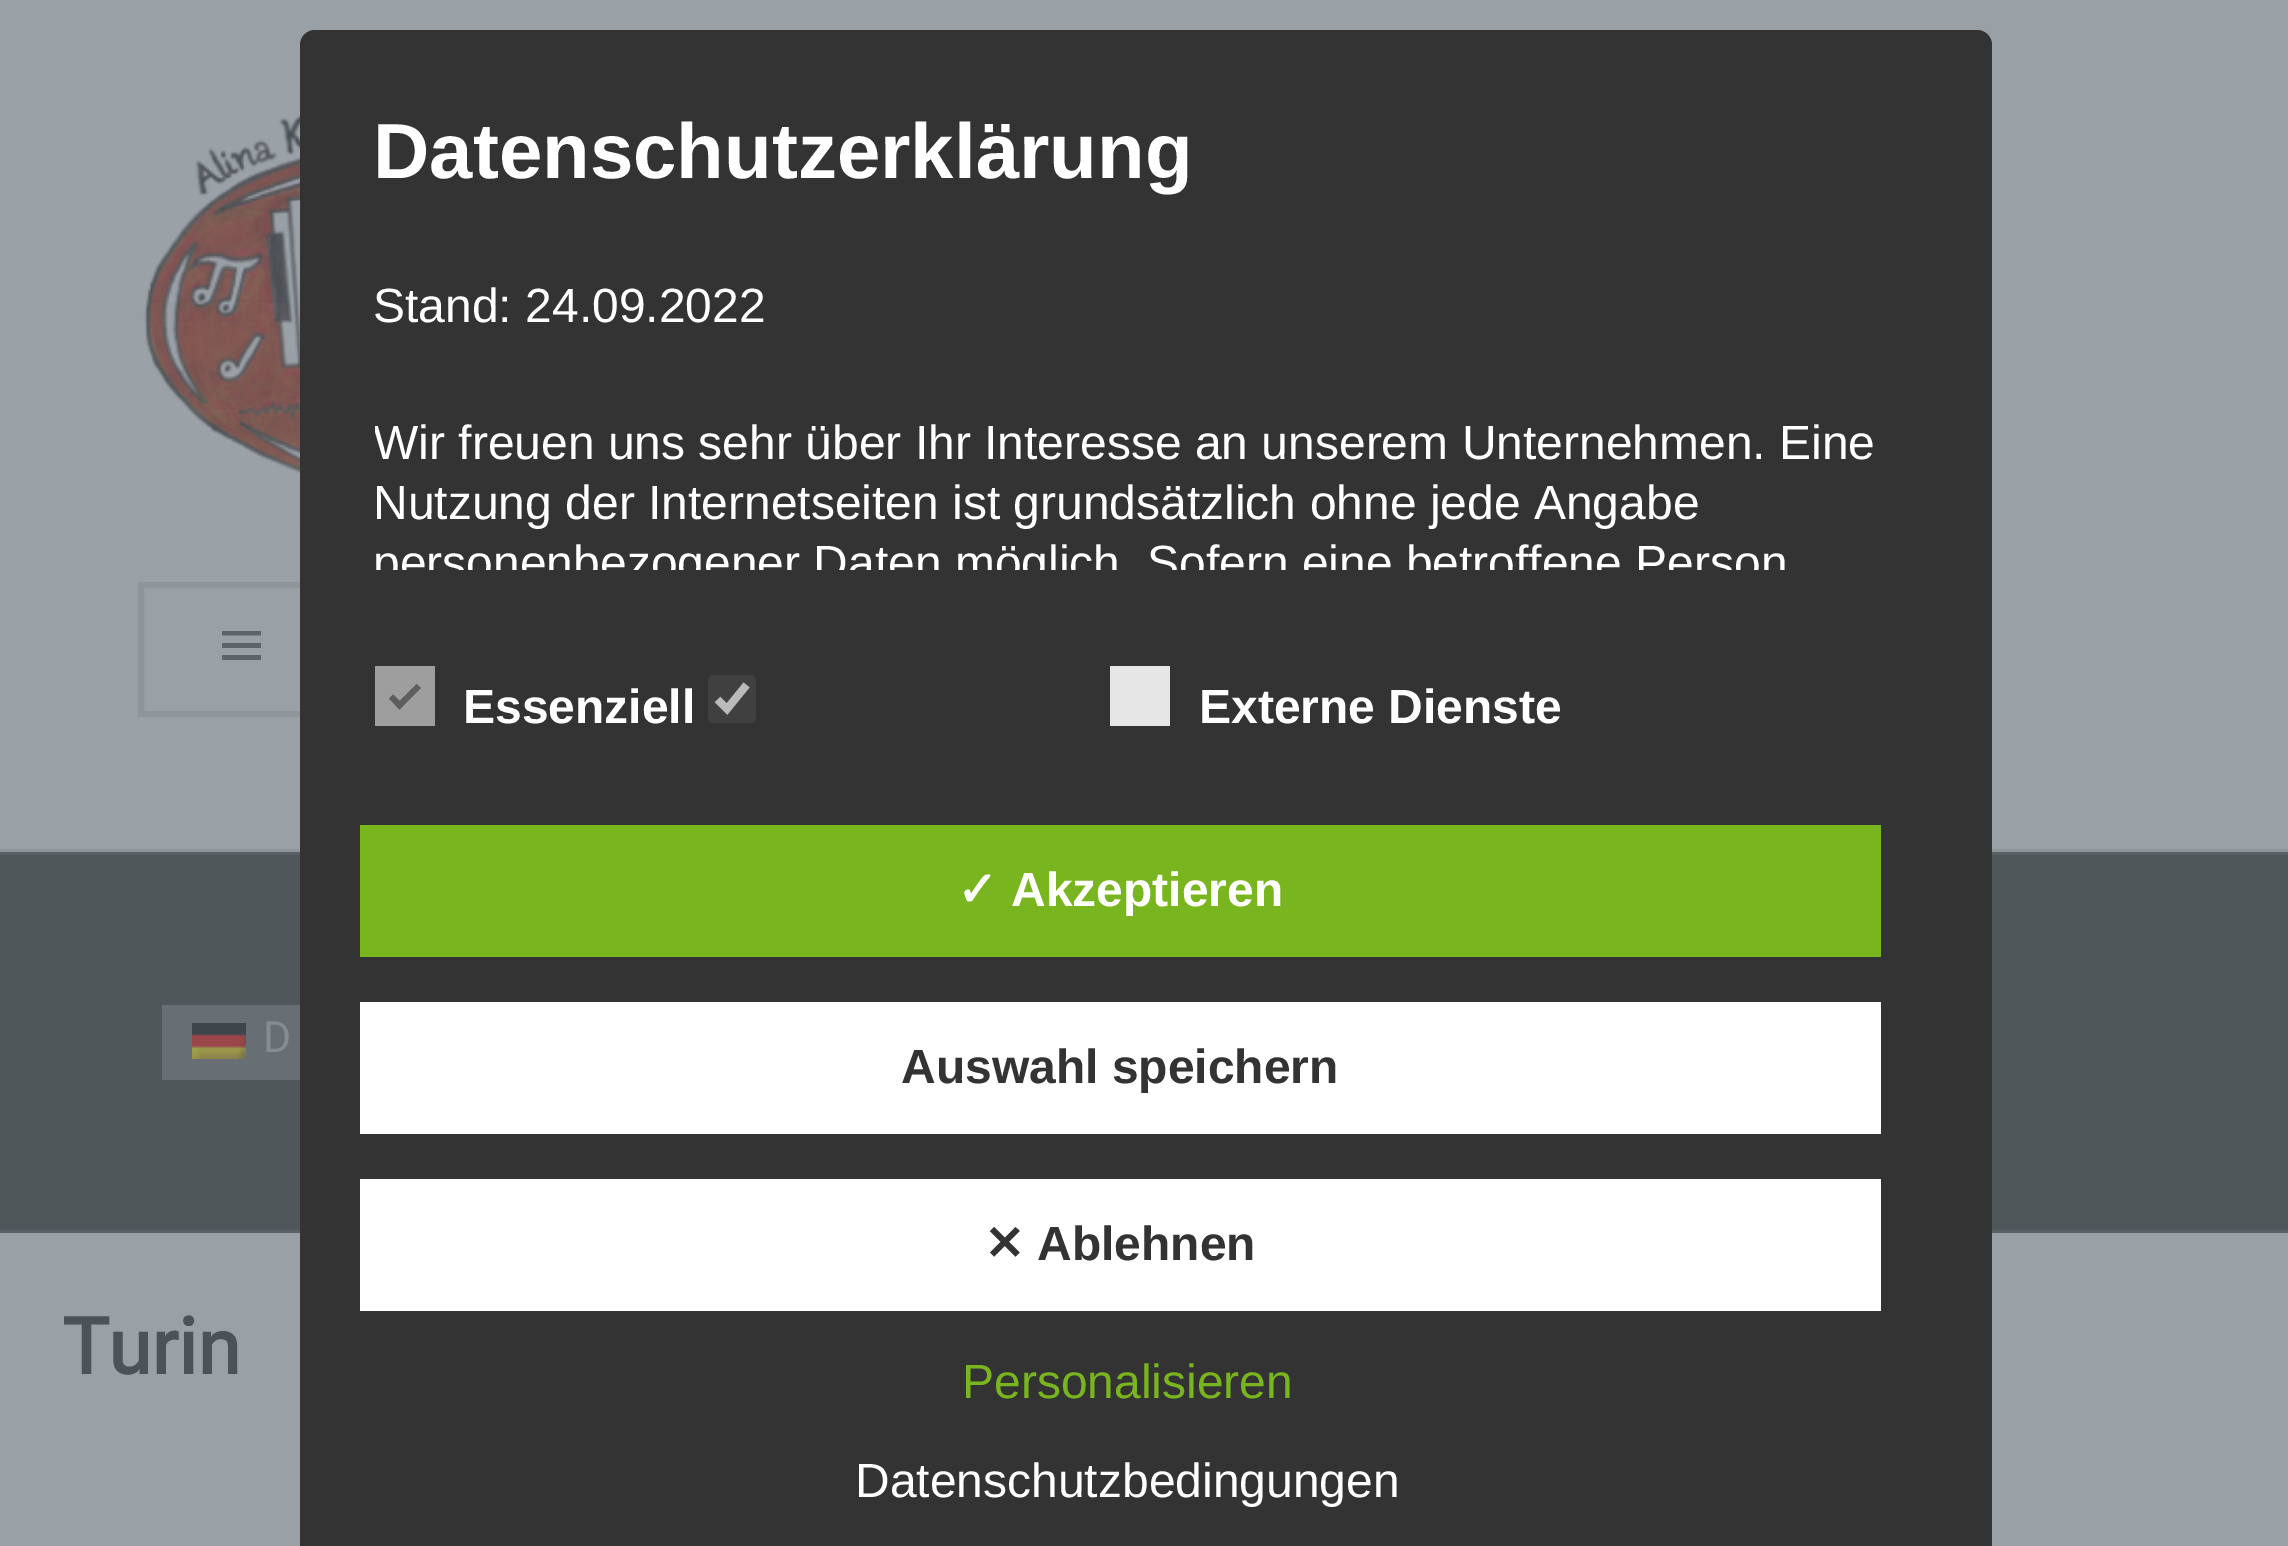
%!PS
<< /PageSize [2288 1546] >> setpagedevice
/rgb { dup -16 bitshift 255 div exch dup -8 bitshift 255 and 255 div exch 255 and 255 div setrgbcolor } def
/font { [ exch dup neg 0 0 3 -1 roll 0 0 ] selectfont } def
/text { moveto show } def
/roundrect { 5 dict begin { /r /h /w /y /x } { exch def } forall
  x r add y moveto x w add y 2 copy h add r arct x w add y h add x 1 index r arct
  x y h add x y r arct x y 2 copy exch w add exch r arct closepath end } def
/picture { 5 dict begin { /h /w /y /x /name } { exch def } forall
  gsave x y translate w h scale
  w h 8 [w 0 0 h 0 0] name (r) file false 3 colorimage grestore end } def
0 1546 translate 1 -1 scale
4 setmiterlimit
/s1 { /Roboto-Regular 43 font 16#858D91 rgb } def
/s2 { /RobotoFlex-Bold 78 font 16#4C5357 rgb } def
/s3 { /LiberationSans-Bold 78 font 16#FFFFFF rgb } def
/s4 { /LiberationSans-Regular 48 font 16#FFFFFF rgb } def
/s5 { /LiberationSans-Bold 48 font 16#FFFFFF rgb } def
/s6 { /DejaVuSans-Bold 48 font 16#FFFFFF rgb } def
/s7 { /LiberationSans-Bold 48 font 16#333333 rgb } def
/s8 { /DejaVuSans-Bold 48 font 16#333333 rgb } def
/s9 { /LiberationSans-Regular 48 font 16#79B51F rgb } def
16#9AA1A6 rgb
0 0 2288 1546 rectfill
16#8E969A rgb
0 849 2288 3 rectfill
(pic1.raw) 143 87 157 439 picture
6 setlinewidth
141 585 345 129 rectstroke
16#5D6469 rgb
222 660 moveto 222 655 lineto 261 655 lineto 261 660 lineto closepath 222 631 moveto 261 631 lineto 261 635.5 lineto 222 635.5 lineto closepath 222 648 moveto 222 643 lineto 261 643 lineto 261 648 lineto closepath fill
16#4F575B rgb
0 855 2288 375 rectfill
16#5A6166 rgb
0 852 2288 3 rectfill
0 1230 2288 3 rectfill
16#686F74 rgb
162 1005 138 75 rectfill
(pic2.raw) 192 1023 54 36 picture
s1
(D) 263 1052 text
s2
(Turin) 63 1374 text
16#333333 rgb
300 30 1692 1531 15 roundrect fill
s3
(Datenschutzerklärung) 373 178 text
s4
(Stand: 24.09.2022) 373 322 text
gsave
375 105 1572 465 rectclip
(Wir freuen uns sehr über Ihr Interesse an unserem Unternehmen. Eine) 373 459 text
grestore
(Nutzung der Internetseiten ist grundsätzlich ohne jede Angabe) 373 519 text
gsave
375 105 1572 465 rectclip
(personenbezogener Daten möglich. Sofern eine betroffene Person) 373 579 text
grestore
16#9E9E9E rgb
375 666 60 60 rectfill
16#5E5E5E rgb
416.5 684 moveto 421 688 lineto 399.5 709.5 lineto 395.5 705 lineto closepath fill
393 694.5 moveto 404 705 lineto 399.5 709.5 lineto 389 698.5 lineto closepath fill
s5
(Essenziell) 463 723 text
16#404040 rgb
708 675 48 48 6 roundrect fill
16#BABABA rgb
7.7 setlinewidth
717.5 699.5 moveto 727 709 lineto 746.5 685 lineto stroke
16#E6E6E6 rgb
1110 666 60 60 rectfill
s5
(Externe Dienste) 1199 723 text
16#79B51F rgb
360 825 1521 132 rectfill
s6
(✓) 957 906 text
s5
(Akzeptieren) 1011 906 text
360 1002 1521 132 rectfill
s7
(Auswahl speichern) 901 1083 text
16#FFFFFF rgb
360 1179 1521 132 rectfill
s8
(✕) 984 1260 text
s7
(Ablehnen) 1037 1260 text
s9
(Personalisieren) 962 1398 text
s4
(Datenschutzbedingungen) 855 1497 text
showpage
